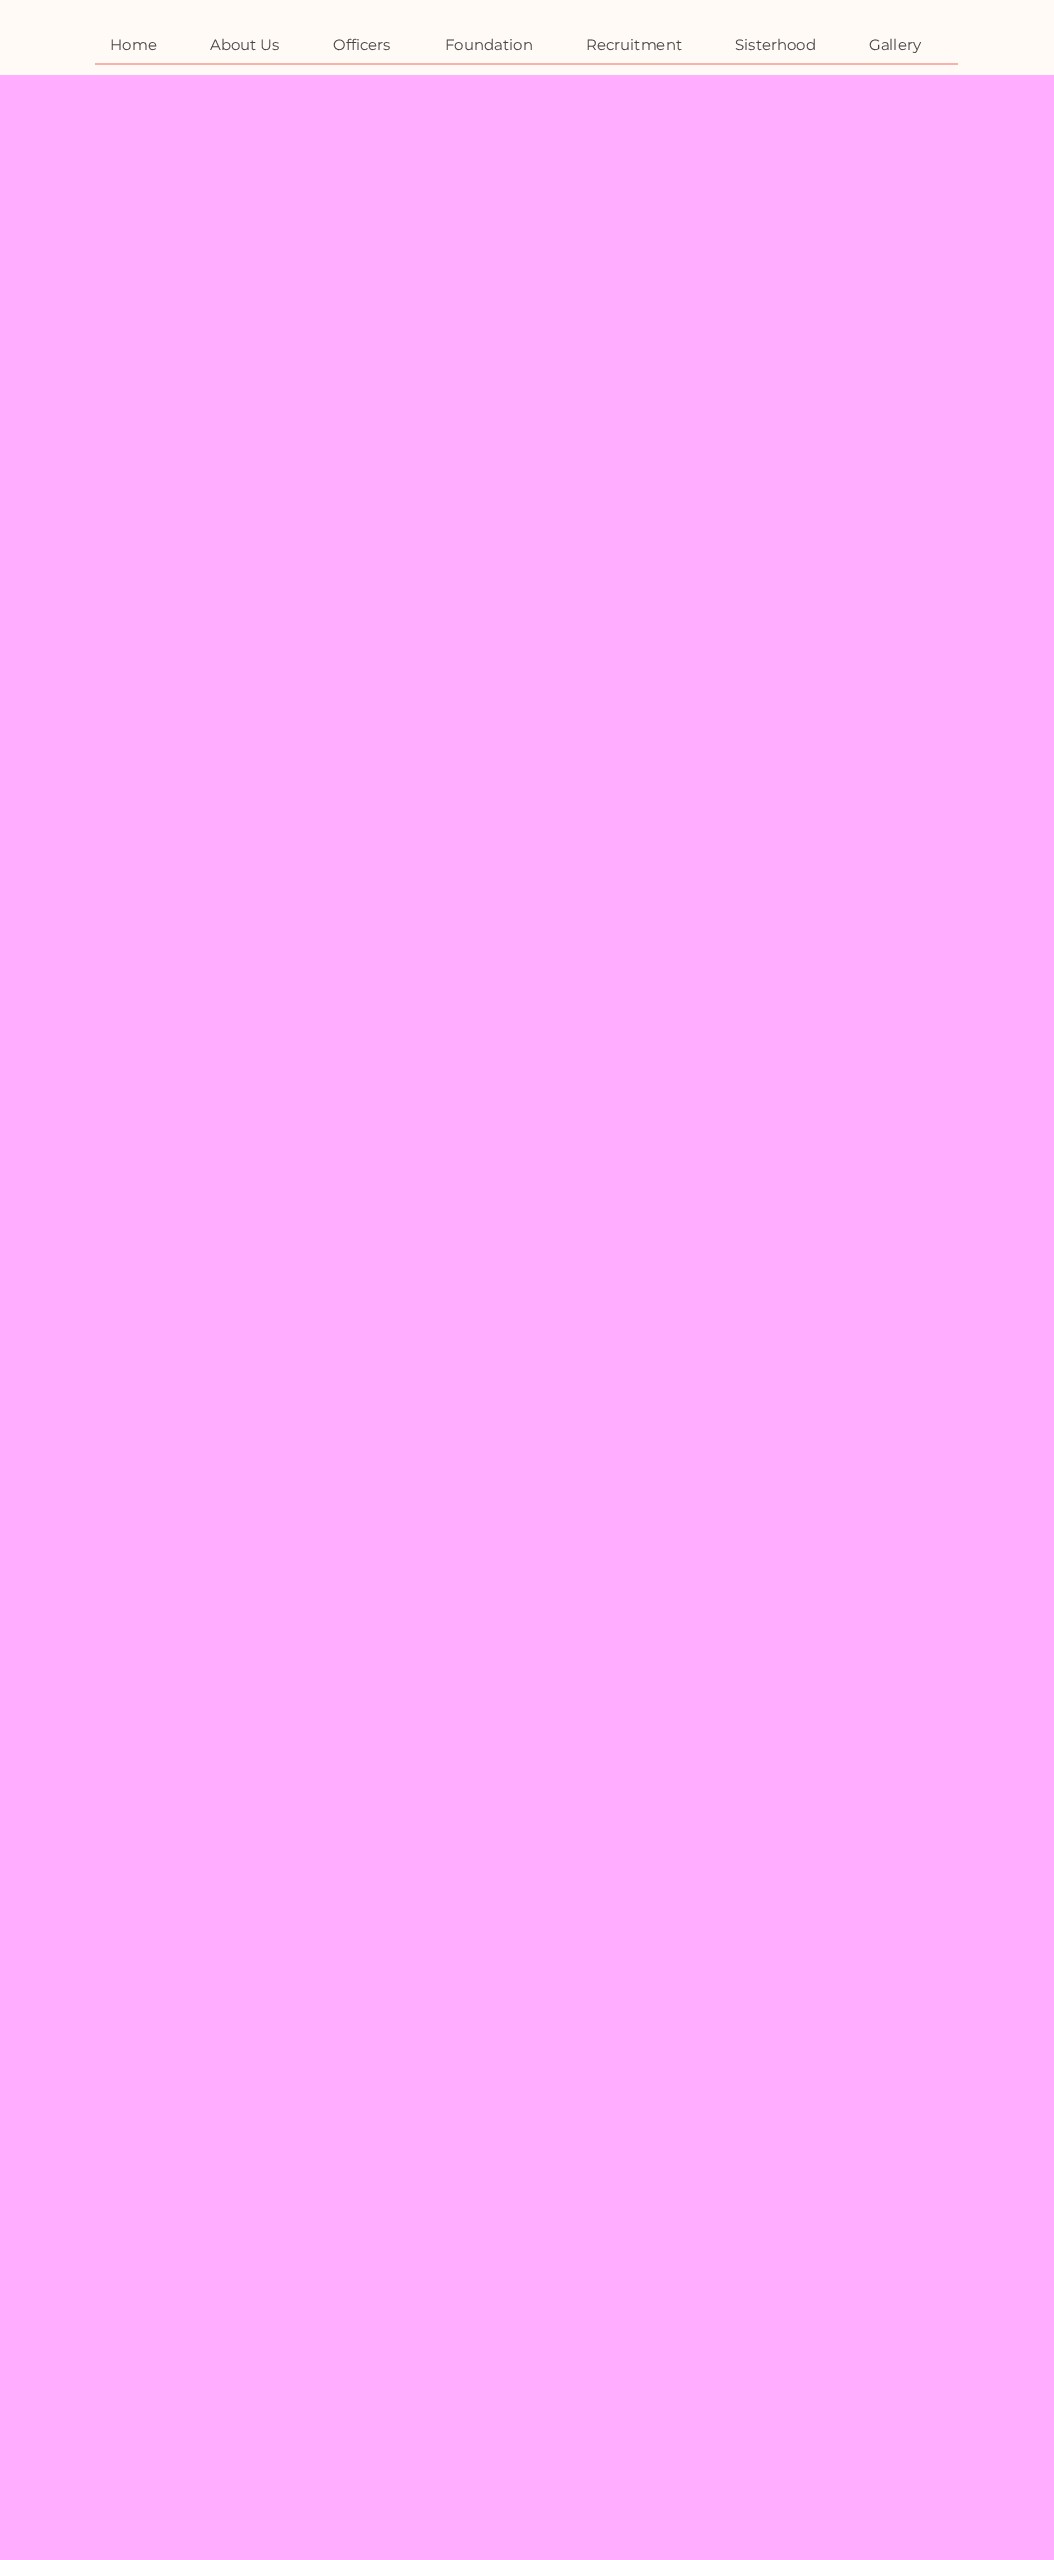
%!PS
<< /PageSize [1054 2560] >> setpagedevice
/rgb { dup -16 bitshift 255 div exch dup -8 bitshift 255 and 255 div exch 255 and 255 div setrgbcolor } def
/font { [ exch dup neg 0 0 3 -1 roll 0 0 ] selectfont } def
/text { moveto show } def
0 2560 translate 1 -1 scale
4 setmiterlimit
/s1 { /Montserrat-Regular 15 font 16#444444 rgb } def
16#FFADFF rgb
0 0 1054 2560 rectfill
16#FFFAF6 rgb
0 0 1054 75 rectfill
16#F7B2AA rgb
95 63 863 2 rectfill
s1
(Home) 110 50 text
(About Us) 210 50 text
(Officers) 333 50 text
(Foundation) 445 50 text
(Recruitment) 586 50 text
(Sisterhood) 735 50 text
(Gallery) 869 50 text
showpage
